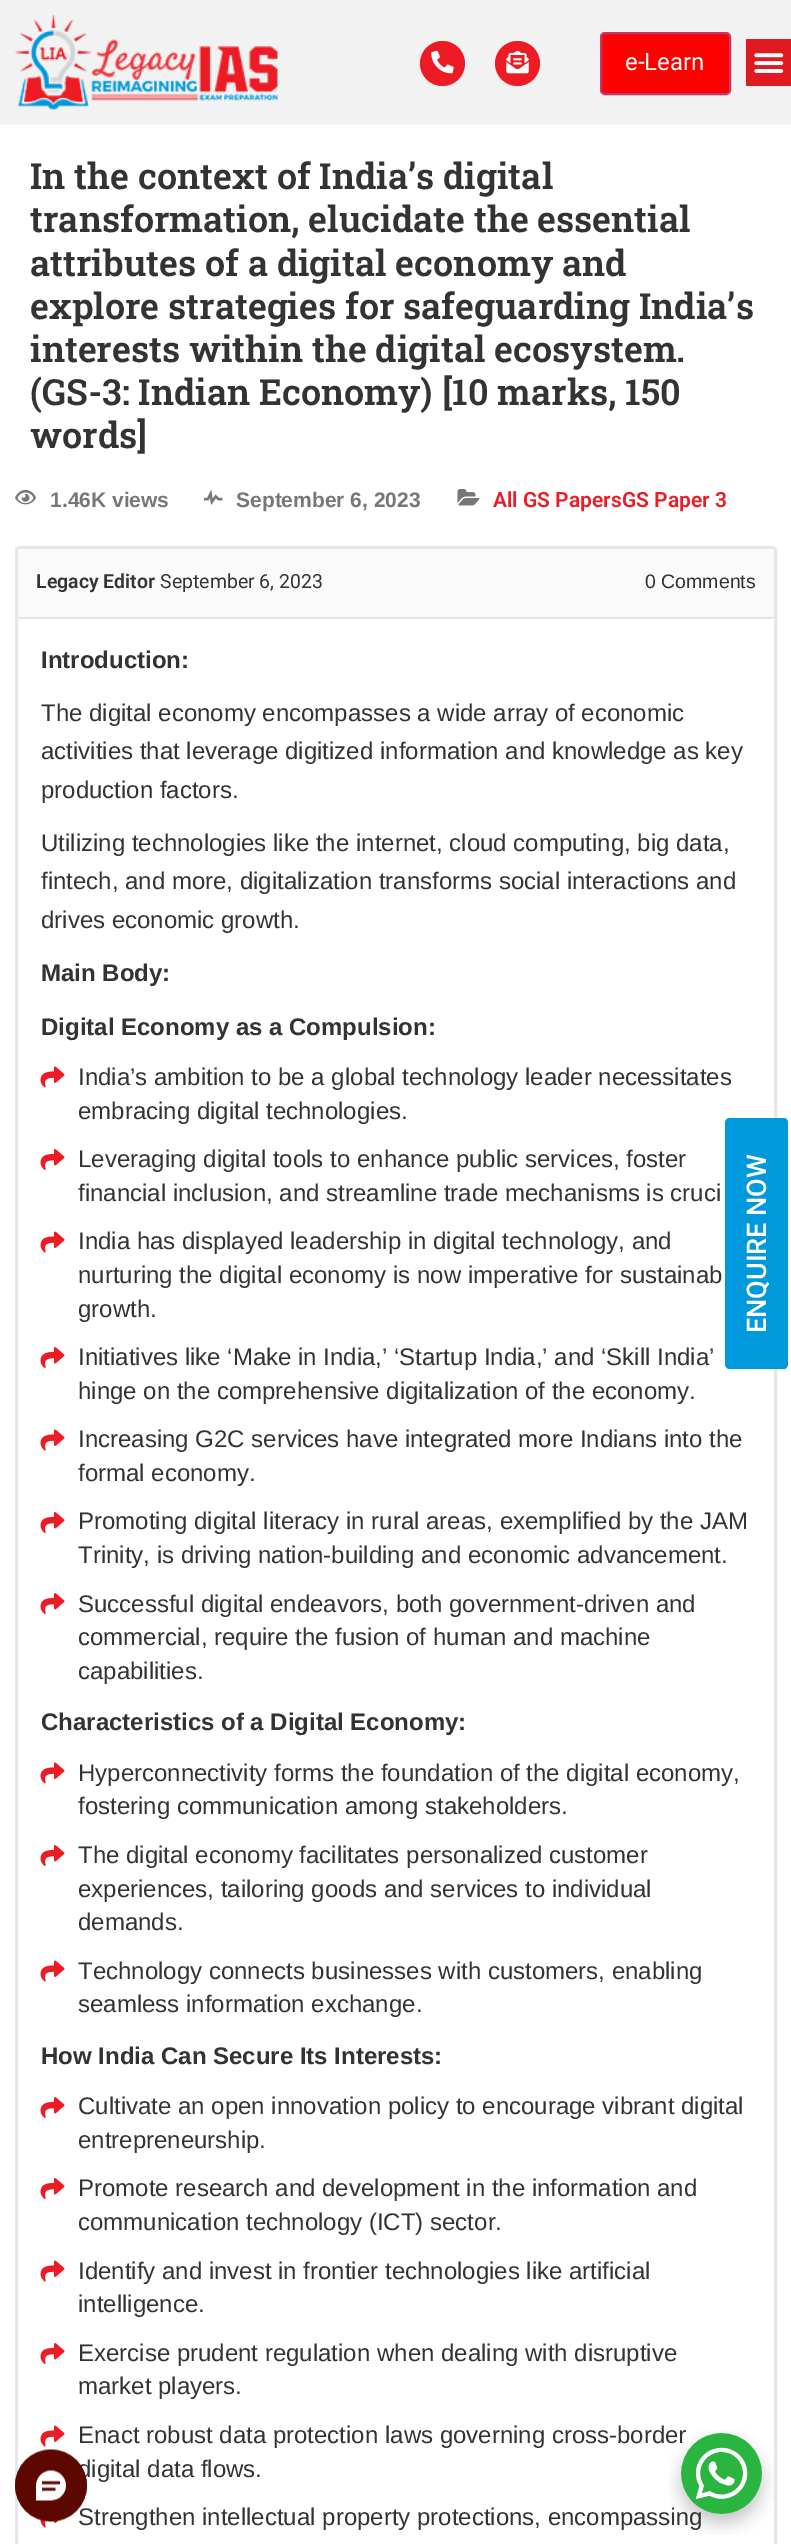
%!PS
<< /PageSize [791 2544] >> setpagedevice
/rgb { dup -16 bitshift 255 div exch dup -8 bitshift 255 and 255 div exch 255 and 255 div setrgbcolor } def
/font { [ exch dup neg 0 0 3 -1 roll 0 0 ] selectfont } def
/text { moveto show } def
/circle { newpath 0 360 arc closepath } def
/roundrect { 5 dict begin { /r /h /w /y /x } { exch def } forall
  x r add y moveto x w add y 2 copy h add r arct x w add y h add x 1 index r arct
  x y h add x y r arct x y 2 copy exch w add exch r arct closepath end } def
/picture { 5 dict begin { /h /w /y /x /name } { exch def } forall
  gsave x y translate w h scale
  w h 8 [w 0 0 h 0 0] name (r) file false 3 colorimage grestore end } def
0 2544 translate 1 -1 scale
4 setmiterlimit
/s1 { /Roboto-Regular 24 font 16#FFFFFF rgb } def
/s2 { /RobotoSlab-SemiBold 36 font 16#333333 rgb } def
/s3 { /LiberationSans-Bold 21 font 16#777777 rgb } def
/s4 { /Roboto-SemiBold 21 font 16#ED1B24 rgb } def
/s5 { /Roboto-SemiBold 19.5 font 16#333333 rgb } def
/s6 { /Roboto-Regular 19.5 font 16#333333 rgb } def
/s7 { /LiberationSans-Regular 19.5 font 16#333333 rgb } def
/s8 { /LiberationSans-Bold 24 font 16#333333 rgb } def
/s9 { /LiberationSans-Regular 24 font 16#333333 rgb } def
16#FFFFFF rgb
0 0 791 2544 rectfill
16#E6E6E6 rgb
18 618 756 1 rectfill
16#F2F2F2 rgb
0 0 791 125 rectfill
(pic1.raw) 15 15 263 95 picture
16#ED1B24 rgb
442.5 63.5 22.5 circle fill
(pic2.raw) 431 50 23 24 picture
517.5 63.5 22.5 circle fill
(pic3.raw) 506 50 23 24 picture
16#FF0000 rgb
601 33 129 61 4 roundrect gsave fill grestore
16#CC3366 rgb
2 setlinewidth
stroke
s1
(e-Learn) 625 70 text
16#ED1B24 rgb
746 39 45 47 rectfill
16#E11A22 rgb
746 39 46 47 5 roundrect fill
(pic4.raw) 754 53 30 20 picture
s2
(In the context of India’s digital) 30 189 text
(transformation, elucidate the essential) 30 232 text
(attributes of a digital economy and) 30 276 text
(explore strategies for safeguarding India’s) 30 319 text
(interests within the digital ecosystem.) 30 362 text
(\(GS-3: Indian Economy\) [10 marks, 150) 30 405 text
(words]) 30 448 text
(pic5.raw) 15 489 21 16 picture
s3
(1.46K views) 50 507 text
(pic6.raw) 204 489 19 16 picture
(September 6, 2023) 236 507 text
(pic7.raw) 457 489 23 17 picture
s4
(All GS PapersGS Paper 3) 493 507 text
16#E6E6E6 rgb
3 setlinewidth
16.5 547.5 759 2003 3.5 roundrect stroke
16#FAFAFA rgb
18 549 756 68 rectfill
16#E1E1E1 rgb
18 617 756 1 rectfill
s5
(Legacy Editor) 36 588 text
s6
(September 6, 2023) 160 588 text
s7
(0 Comments) 645 588 text
s8
(Introduction:) 41 668 text
s9
(The digital economy encompasses a wide array of economic) 41 721 text
(activities that leverage digitized information and knowledge as key) 41 759 text
(production factors.) 41 798 text
(Utilizing technologies like the internet, cloud computing, big data,) 41 851 text
(fintech, and more, digitalization transforms social interactions and) 41 889 text
(drives economic growth.) 41 928 text
s8
(Main Body:) 41 981 text
(Digital Economy as a Compulsion:) 41 1035 text
(pic8.raw) 40 1066 25 22 picture
s9
(India’s ambition to be a global technology leader necessitates) 78 1085 text
(embracing digital technologies.) 78 1119 text
(pic9.raw) 40 1149 25 21 picture
(Leveraging digital tools to enhance public services, foster) 78 1167 text
(financial inclusion, and streamline trade mechanisms is cruci) 78 1201 text
(pic8.raw) 40 1231 25 22 picture
(India has displayed leadership in digital technology, and) 78 1249 text
(nurturing the digital economy is now imperative for sustainab) 78 1283 text
(growth.) 78 1317 text
(pic9.raw) 40 1347 25 21 picture
(Initiatives like ‘Make in India,’ ‘Startup India,’ and ‘Skill India’) 78 1365 text
(hinge on the comprehensive digitalization of the economy.) 78 1399 text
(pic8.raw) 40 1429 25 22 picture
(Increasing G2C services have integrated more Indians into the) 78 1447 text
(formal economy.) 78 1481 text
(pic9.raw) 40 1512 25 21 picture
(Promoting digital literacy in rural areas, exemplified by the JAM) 78 1529 text
(Trinity, is driving nation-building and economic advancement.) 78 1563 text
(pic9.raw) 40 1593 25 21 picture
(Successful digital endeavors, both government-driven and) 78 1612 text
(commercial, require the fusion of human and machine) 78 1645 text
(capabilities.) 78 1679 text
s8
(Characteristics of a Digital Economy:) 41 1730 text
(pic8.raw) 40 1762 25 22 picture
s9
(Hyperconnectivity forms the foundation of the digital economy,) 78 1781 text
(fostering communication among stakeholders.) 78 1814 text
(pic9.raw) 40 1845 25 21 picture
(The digital economy facilitates personalized customer) 78 1863 text
(experiences, tailoring goods and services to individual) 78 1897 text
(demands.) 78 1930 text
(pic8.raw) 40 1960 25 22 picture
(Technology connects businesses with customers, enabling) 78 1979 text
(seamless information exchange.) 78 2012 text
s8
(How India Can Secure Its Interests:) 41 2064 text
(pic9.raw) 40 2097 25 21 picture
s9
(Cultivate an open innovation policy to encourage vibrant digital) 78 2114 text
(entrepreneurship.) 78 2148 text
(pic9.raw) 40 2178 25 21 picture
(Promote research and development in the information and) 78 2196 text
(communication technology \(ICT\) sector.) 78 2230 text
(pic8.raw) 40 2260 25 22 picture
(Identify and invest in frontier technologies like artificial) 78 2279 text
(intelligence.) 78 2312 text
(pic9.raw) 40 2343 25 21 picture
(Exercise prudent regulation when dealing with disruptive) 78 2361 text
(market players.) 78 2394 text
(pic8.raw) 40 2425 25 22 picture
(Enact robust data protection laws governing cross-border) 78 2443 text
(digital data flows.) 78 2477 text
(pic10.raw) 40 2519 20 9 picture
(Strengthen intellectual property protections, encompassing) 78 2525 text
16#0099DC rgb
725 1364 moveto 725 1123 lineto 725 1120 727 1118 730 1118 curveto 784 1118 lineto 786 1118 788 1120 788 1123 curveto 788 1364 lineto 788 1367 786 1369 784 1369 curveto 730 1369 lineto 727 1369 725 1367 725 1364 curveto closepath fill
/Roboto-Medium 27 font
16#FFFFFF rgb
gsave 766 1333 translate -90 rotate 0 0 moveto (ENQUIRE NOW) show grestore
(pic11.raw) 15 2449 72 73 picture
(pic12.raw) 669 2430 105 105 picture
showpage
